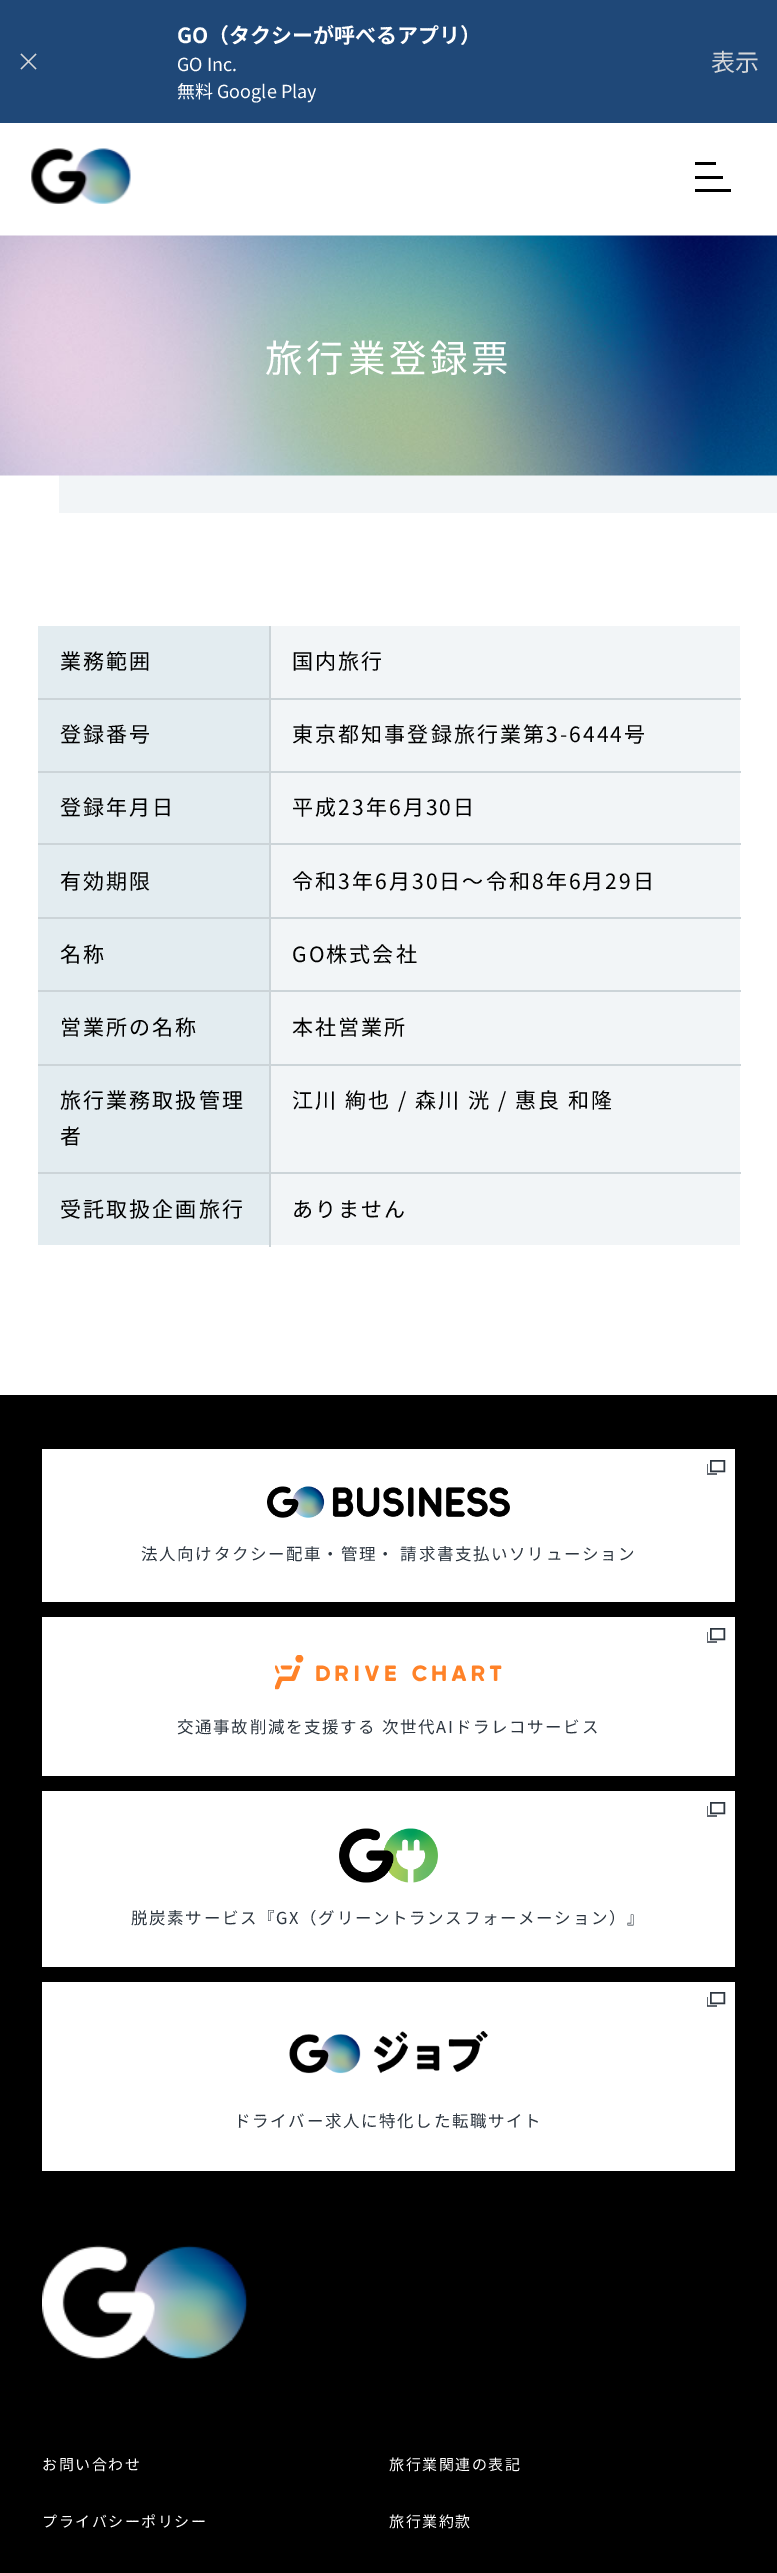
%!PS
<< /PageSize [777 2573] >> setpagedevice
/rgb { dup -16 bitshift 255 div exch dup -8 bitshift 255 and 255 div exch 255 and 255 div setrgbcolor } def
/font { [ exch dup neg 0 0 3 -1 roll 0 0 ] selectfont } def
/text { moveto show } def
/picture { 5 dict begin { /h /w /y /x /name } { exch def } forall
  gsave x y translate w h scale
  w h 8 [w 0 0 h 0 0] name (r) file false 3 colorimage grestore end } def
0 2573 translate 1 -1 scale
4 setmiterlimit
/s1 { /NotoSansJP-Bold 21 font 16#FFFFFF rgb } def
/s2 { /NotoSansJP-Regular 18 font 16#FFFFFF rgb } def
/s3 { /NotoSansJP-Regular 24 font 16#D5D7D9 rgb } def
16#FFFFFF rgb
0 0 777 2573 rectfill
16#1F4878 rgb
0 0 777 123 rectfill
16#D5D7D9 rgb
35.5 53.5 moveto 36.5 54.5 lineto 21.5 69.5 lineto 20.5 68.5 lineto closepath fill
20.5 54.5 moveto 21.5 53.5 lineto 36.5 68.5 lineto 35.5 69.5 lineto closepath fill
s1
(GO（タクシーが呼べるアプリ）) 177 43 text
s2
(GO Inc.) 177 71 text
(無料 Google Play) 177 98 text
s3
(表示) 711 71 text
(pic1.raw) 31 148 100 56 picture
16#000000 rgb
695 162 21 3 rectfill
695 176 28 3 rectfill
695 189 36 3 rectfill
16#F2F5F7 rgb
59 475 718 38 rectfill
(pic2.raw) 0 235 777 241 picture
/NotoSansJP-Regular 37.5 font
16#FFFFFF rgb
265 372 moveto 3.75 0 (旅行業登録票) ashow
16#E3ECF0 rgb
38 626 231 72 rectfill
/NotoSansJP-Regular 21 font
16#000000 rgb
60 669 moveto 2.1 0 (業務範囲) ashow
16#F2F5F7 rgb
271 626 469 72 rectfill
16#000000 rgb
292 669 moveto 2.1 0 (国内旅行) ashow
16#CCD4D8 rgb
38 698 703 2 rectfill
16#E3ECF0 rgb
38 700 231 71 rectfill
16#000000 rgb
60 742 moveto 2.1 0 (登録番号) ashow
16#F2F5F7 rgb
271 700 469 71 rectfill
16#000000 rgb
292 742 moveto 2.1 0 (東京都知事登録旅行業第3-6444号) ashow
16#CCD4D8 rgb
38 771 703 2 rectfill
16#E3ECF0 rgb
38 773 231 70 rectfill
16#000000 rgb
60 815 moveto 2.1 0 (登録年月日) ashow
16#F2F5F7 rgb
271 773 469 70 rectfill
16#000000 rgb
292 815 moveto 2.1 0 (平成23年6月30日) ashow
16#CCD4D8 rgb
38 843 703 2 rectfill
16#E3ECF0 rgb
38 845 231 72 rectfill
16#000000 rgb
60 889 moveto 2.1 0 (有効期限) ashow
16#F2F5F7 rgb
271 845 469 72 rectfill
16#000000 rgb
292 889 moveto 2.1 0 (令和3年6月30日〜令和8年6月29日) ashow
16#CCD4D8 rgb
38 917 703 2 rectfill
16#E3ECF0 rgb
38 919 231 71 rectfill
16#000000 rgb
60 962 moveto 2.1 0 (名称) ashow
16#F2F5F7 rgb
271 919 469 71 rectfill
16#000000 rgb
292 962 moveto 2.1 0 (GO株式会社) ashow
16#CCD4D8 rgb
38 990 703 2 rectfill
16#E3ECF0 rgb
38 992 231 72 rectfill
16#000000 rgb
60 1035 moveto 2.1 0 (営業所の名称) ashow
16#F2F5F7 rgb
271 992 469 72 rectfill
16#000000 rgb
292 1035 moveto 2.1 0 (本社営業所) ashow
16#CCD4D8 rgb
38 1064 703 2 rectfill
16#E3ECF0 rgb
38 1066 231 106 rectfill
16#000000 rgb
60 1108 moveto 2.1 0 (旅行業務取扱管理) ashow
60 1144 moveto 2.1 0 (者) ashow
16#F2F5F7 rgb
271 1066 469 106 rectfill
16#000000 rgb
292 1108 moveto 2.1 0 (江川 絢也 / 森川 洸 / 惠良 和隆) ashow
16#CCD4D8 rgb
38 1172 703 2 rectfill
16#E3ECF0 rgb
38 1174 231 71 rectfill
16#CCD4D8 rgb
269 626 2 621 rectfill
16#000000 rgb
60 1217 moveto 2.1 0 (受託取扱企画旅行) ashow
16#F2F5F7 rgb
271 1174 469 71 rectfill
16#000000 rgb
292 1217 moveto 2.1 0 (ありません) ashow
0 1395 777 1178 rectfill
16#FFFFFF rgb
42 1449 693 153 rectfill
16#2D3640 rgb
1.5 setlinewidth
710.75 1460.75 13.5 10.5 rectstroke
16#626870 rgb
707 1464 1 9 rectfill
707 1473 10 2 rectfill
(pic3.raw) 267 1486 243 32 picture
/NotoSansJP-Regular 16.5 font
16#2D3640 rgb
141 1560 moveto 1.65 0 (法人向けタクシー配車・管理・ 請求書支払いソリューション) ashow
16#FFFFFF rgb
42 1617 693 159 rectfill
16#2D3640 rgb
710.75 1628.75 13.5 10.5 rectstroke
16#626870 rgb
707 1632 1 9 rectfill
707 1641 10 2 rectfill
(pic4.raw) 275 1655 227 35 picture
16#2D3640 rgb
177 1733 moveto 1.65 0 (交通事故削減を支援する 次世代AIドラレコサービス) ashow
16#FFFFFF rgb
42 1791 693 176 rectfill
16#2D3640 rgb
710.75 1802.75 13.5 10.5 rectstroke
16#626870 rgb
707 1806 1 9 rectfill
707 1815 10 2 rectfill
(pic5.raw) 339 1828 99 55 picture
16#2D3640 rgb
131 1924 moveto 1.65 0 (脱炭素サービス『GX（グリーントランスフォーメーション）』) ashow
16#FFFFFF rgb
42 1982 693 189 rectfill
16#626870 rgb
707 2005 10 2 rectfill
16#2D3640 rgb
710.75 1992.75 13.5 10.5 rectstroke
16#626870 rgb
707 1997 1 9 rectfill
16#3A434C rgb
707 2005 1 1 rectfill
(pic6.raw) 289 2031 199 43 picture
16#2D3640 rgb
234 2127 moveto 1.65 0 (ドライバー求人に特化した転職サイト) ashow
(pic7.raw) 42 2245 206 115 picture
/NotoSansJP-Regular 15 font
16#FFFFFF rgb
42 2470 moveto 1.5 0 (お問い合わせ) ashow
389 2470 moveto 1.5 0 (旅行業関連の表記) ashow
42 2527 moveto 1.5 0 (プライバシーポリシー) ashow
389 2527 moveto 1.5 0 (旅行業約款) ashow
showpage
